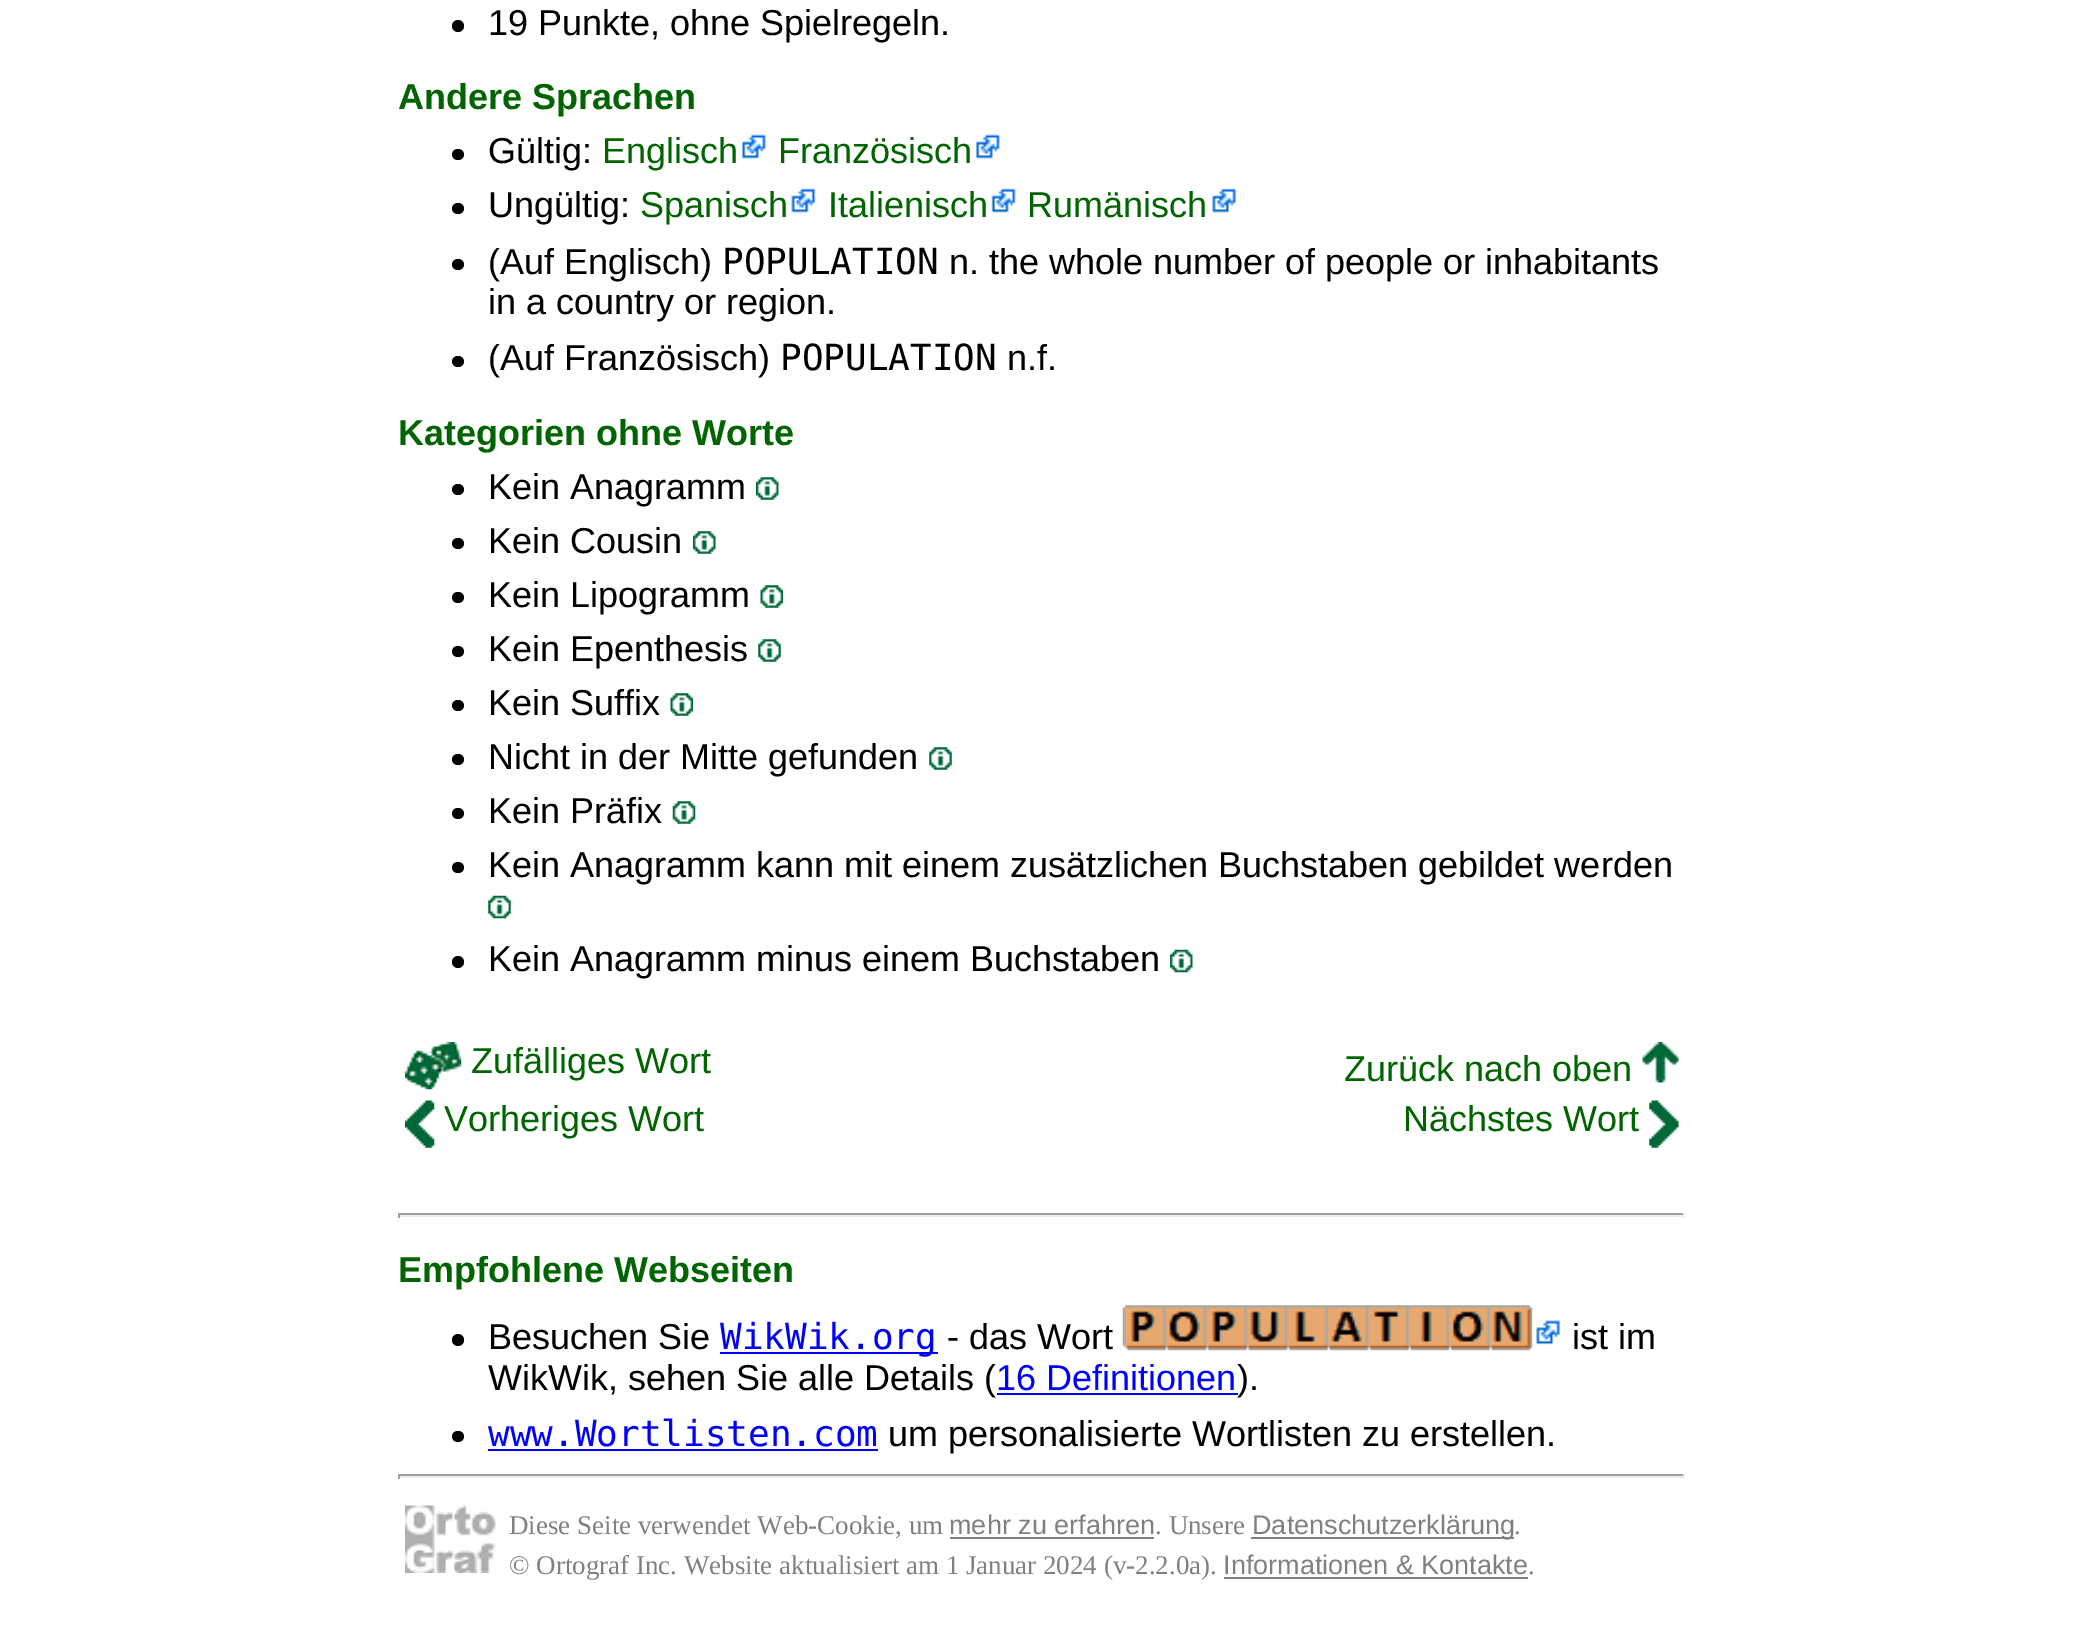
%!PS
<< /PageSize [2082 1638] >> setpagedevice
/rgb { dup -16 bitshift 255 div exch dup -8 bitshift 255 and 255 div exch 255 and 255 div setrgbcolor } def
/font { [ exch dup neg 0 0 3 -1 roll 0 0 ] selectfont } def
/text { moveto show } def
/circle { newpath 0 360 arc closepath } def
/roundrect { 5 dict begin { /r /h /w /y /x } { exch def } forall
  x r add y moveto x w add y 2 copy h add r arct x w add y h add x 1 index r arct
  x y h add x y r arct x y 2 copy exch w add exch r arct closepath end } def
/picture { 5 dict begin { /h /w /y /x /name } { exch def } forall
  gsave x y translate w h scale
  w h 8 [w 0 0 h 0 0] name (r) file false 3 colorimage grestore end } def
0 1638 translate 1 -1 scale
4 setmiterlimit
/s1 { /LiberationSans-Regular 36 font 16#000000 rgb } def
/s2 { /LiberationSans-Bold 36 font 16#006400 rgb } def
/s3 { /LiberationSans-Regular 36 font 16#006400 rgb } def
/s4 { /DejaVuSansMono-Regular 36 font 16#000000 rgb } def
/s5 { /DejaVuSansMono-Regular 36 font 16#0000FF rgb } def
/s6 { /LiberationSans-Regular 36 font 16#0000FF rgb } def
/s7 { /LiberationSerif-Regular 27 font 16#808080 rgb } def
/s8 { /LiberationSans-Regular 27 font 16#808080 rgb } def
16#FFFFFF rgb
0 0 2082 1638 rectfill
16#000000 rgb
458 26 6 circle fill
s1
(19 Punkte, ohne Spielregeln.) 488 35 text
s2
(Andere Sprachen) 398 109 text
16#000000 rgb
452 149 12 11 5.5 roundrect fill
s1
(Gültig:) 488 163 text
s3
(Englisch) 602 163 text
(pic1.raw) 742 134 24 25 picture
(Französisch) 778 163 text
(pic1.raw) 976 134 24 25 picture
16#000000 rgb
452 203 12 11 5.5 roundrect fill
(Ungültig:) 488 217 text
s3
(Spanisch) 640 217 text
(pic2.raw) 791 188 25 25 picture
(Italienisch) 828 217 text
(pic3.raw) 991 188 25 25 picture
(Rumänisch) 1027 217 text
(pic4.raw) 1212 188 24 25 picture
16#000000 rgb
452 259 12 11 5.5 roundrect fill
(\(Auf Englisch\)) 488 274 text
s4
(POPULATION) 722 274 text
s1
(n. the whole number of people or inhabitants) 949 274 text
(in a country or region.) 488 314 text
452 356 12 11 5.5 roundrect fill
(\(Auf Französisch\)) 488 370 text
s4
(POPULATION) 780 370 text
s1
(n.f.) 1007 370 text
s2
(Kategorien ohne Worte) 398 445 text
16#000000 rgb
452 484 12 11 5.5 roundrect fill
s1
(Kein Anagramm) 488 499 text
(pic5.raw) 756 477 23 23 picture
452 538 12 11 5.5 roundrect fill
(Kein Cousin) 488 553 text
(pic6.raw) 693 531 23 23 picture
452 592 12 11 5.5 roundrect fill
(Kein Lipogramm) 488 607 text
(pic7.raw) 760 585 23 23 picture
452 646 12 11 5.5 roundrect fill
(Kein Epenthesis) 488 661 text
(pic8.raw) 758 639 23 23 picture
452 700 12 11 5.5 roundrect fill
(Kein Suffix) 488 715 text
(pic9.raw) 670 693 23 23 picture
452 754 12 11 5.5 roundrect fill
(Nicht in der Mitte gefunden) 488 769 text
(pic10.raw) 929 747 23 23 picture
452 808 12 11 5.5 roundrect fill
(Kein Präfix) 488 823 text
(pic11.raw) 672 801 24 23 picture
452 862 12 11 5.5 roundrect fill
(Kein Anagramm kann mit einem zusätzlichen Buchstaben gebildet werden) 488 877 text
(pic12.raw) 488 895 23 24 picture
458 962 6 circle fill
(Kein Anagramm minus einem Buchstaben) 488 971 text
(pic13.raw) 1170 949 23 24 picture
(pic14.raw) 405 1042 57 48 picture
s3
(Zufälliges Wort) 471 1073 text
(Zurück nach oben) 1344 1081 text
(pic15.raw) 1642 1042 37 41 picture
(pic16.raw) 405 1100 30 48 picture
(Vorheriges Wort) 444 1131 text
(Nächstes Wort) 1403 1131 text
(pic17.raw) 1649 1100 30 48 picture
16#9F9F9F rgb
398 1213 1287 2 rectfill
16#EEEEEE rgb
1683 1213 2 5 rectfill
398 1215 1287 2 rectfill
16#9F9F9F rgb
398 1213 2 5 rectfill
s2
(Empfohlene Webseiten) 398 1282 text
16#000000 rgb
458 1340 6 circle fill
s1
(Besuchen Sie) 488 1349 text
16#0000FF rgb
720 1352 218 2 rectfill
s5
(WikWik.org) 720 1349 text
s1
(- das Wort) 947 1349 text
(pic18.raw) 1122 1305 411 46 picture
(pic19.raw) 1536 1320 24 25 picture
(ist im) 1572 1349 text
(WikWik, sehen Sie alle Details \() 488 1390 text
s6
(16 Definitionen) 996 1390 text
997 1393 241 2 rectfill
s1
(\).) 1237 1390 text
452 1431 12 11 5.5 roundrect fill
s5
(www.Wortlisten.com) 488 1446 text
488 1449 390 2 rectfill
s1
(um personalisierte Wortlisten zu erstellen.) 888 1446 text
16#9F9F9F rgb
398 1474 1287 2 rectfill
16#EEEEEE rgb
1683 1474 2 5 rectfill
398 1476 1287 2 rectfill
16#9F9F9F rgb
398 1474 2 5 rectfill
(pic20.raw) 405 1505 91 68 picture
s7
(Diese Seite verwendet Web-Cookie, um) 509 1534 text
s8
(mehr zu erfahren) 949 1534 text
950 1537 204 2 rectfill
s7
(. Unsere) 1155 1534 text
1251 1537 263 2 rectfill
s8
(Datenschutzerklärung) 1252 1534 text
s7
(.) 1514 1534 text
(© Ortograf Inc. Website aktualisiert am 1 Januar 2024 \(v-2.2.0a\).) 509 1574 text
s8
(Informationen & Kontakte) 1223 1574 text
s7
(.) 1528 1574 text
1224 1577 304 2 rectfill
showpage
